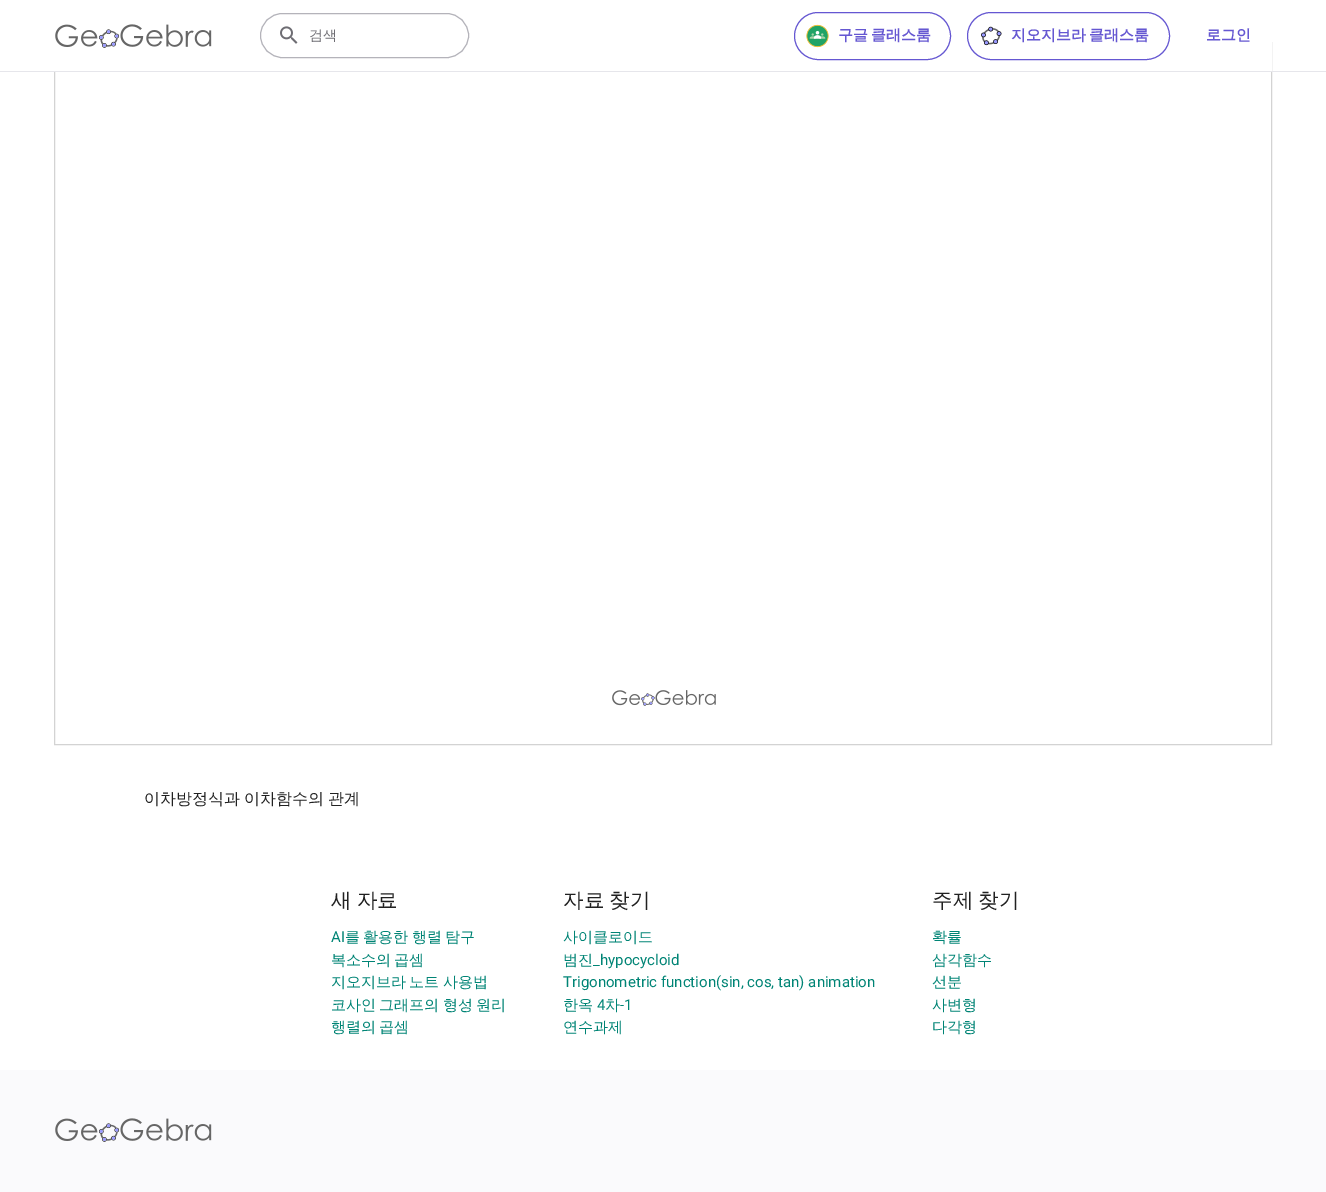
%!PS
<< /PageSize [1326 1192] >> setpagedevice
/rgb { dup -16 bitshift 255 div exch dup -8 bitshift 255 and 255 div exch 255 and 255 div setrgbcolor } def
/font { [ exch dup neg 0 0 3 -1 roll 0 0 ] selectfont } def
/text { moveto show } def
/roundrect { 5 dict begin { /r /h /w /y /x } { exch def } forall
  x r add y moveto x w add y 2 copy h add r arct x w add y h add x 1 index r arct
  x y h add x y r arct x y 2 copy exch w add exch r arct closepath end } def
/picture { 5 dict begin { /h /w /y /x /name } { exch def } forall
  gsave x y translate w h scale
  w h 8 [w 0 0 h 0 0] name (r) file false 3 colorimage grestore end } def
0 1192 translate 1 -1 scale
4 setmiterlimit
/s1 { /WenQuanYiZenHei-Medium 14 font 16#6E6D73 rgb } def
/s2 { /WenQuanYiZenHei-Bold 15 font 16#6557D2 rgb } def
/s3 { /Roboto-Regular 15 font 16#008475 rgb } def
/s4 { /WenQuanYiZenHei-Medium 15 font 16#008475 rgb } def
16#FFFFFF rgb
0 0 1326 1192 rectfill
(pic5.raw) 612 690 104 16 picture
16#D3D3D3 rgb
54.5 42.5 1217 702 rectstroke
16#FFFFFF rgb
54 42 1218 29 rectfill
16#E6E6EB rgb
0 71 1326 1 rectfill
(pic1.raw) 55 24 157 24 picture
16#B4B3BA rgb
260.5 13.5 208 44 22 roundrect stroke
(pic2.raw) 280 26 18 18 picture
s1
(검색) 309 40 text
16#6557D2 rgb
794.5 12.5 156 47 23.5 roundrect stroke
(pic3.raw) 806 24 23 24 picture
/WenQuanYiZenHei-Bold 15 font
838 40 moveto -1 0 32 (구글 클래스룸) widthshow
967.5 12.5 202 47 23.5 roundrect stroke
(pic4.raw) 981 26 21 20 picture
1011 40 moveto -1 0 32 (지오지브라 클래스룸) widthshow
(로그인) 1206 40 text
/WenQuanYiZenHei-Medium 16 font
16#212121 rgb
144 804 moveto -1 0 32 (이차방정식과 이차함수의 관계) widthshow
/WenQuanYiZenHei-Medium 20.5 font
331 907 moveto -1 0 32 (새 자료) widthshow
s3
(AI) 331 942 text
/WenQuanYiZenHei-Medium 15 font
345 942 moveto -1 0 32 (를 활용한 행렬 탐구) widthshow
331 965 moveto -1 0 32 (복소수의 곱셈) widthshow
331 987 moveto -1 0 32 (지오지브라 노트 사용법) widthshow
331 1010 moveto -1 0 32 (코사인 그래프의 형성 원리) widthshow
331 1032 moveto -1 0 32 (행렬의 곱셈) widthshow
/WenQuanYiZenHei-Medium 20.5 font
16#212121 rgb
563 907 moveto -1 0 32 (자료 찾기) widthshow
s4
(사이클로이드) 563 942 text
(범진) 563 965 text
s3
(_hypocycloid) 593 965 text
(Trigonometric function\(sin, cos, tan\) animation) 563 987 text
s4
(한옥) 563 1010 text
s3
(4) 597 1010 text
s4
(차) 605 1010 text
s3
(-1) 620 1010 text
s4
(연수과제) 563 1032 text
/WenQuanYiZenHei-Medium 20.5 font
16#212121 rgb
932 907 moveto -1 0 32 (주제 찾기) widthshow
s4
(확률) 932 942 text
(삼각함수) 932 965 text
(선분) 932 987 text
(사변형) 932 1010 text
(다각형) 932 1032 text
16#FAFAFC rgb
0 1070 1326 122 rectfill
(pic6.raw) 55 1118 157 24 picture
showpage
